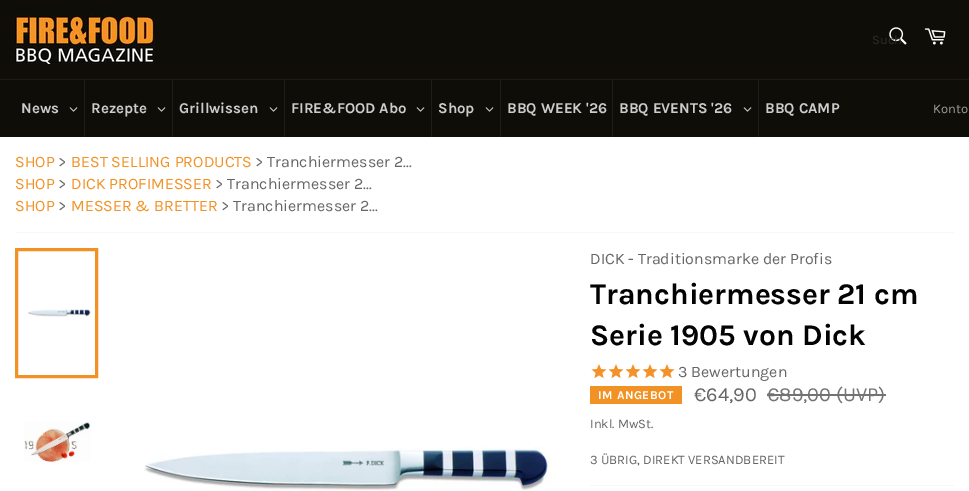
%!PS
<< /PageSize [969 491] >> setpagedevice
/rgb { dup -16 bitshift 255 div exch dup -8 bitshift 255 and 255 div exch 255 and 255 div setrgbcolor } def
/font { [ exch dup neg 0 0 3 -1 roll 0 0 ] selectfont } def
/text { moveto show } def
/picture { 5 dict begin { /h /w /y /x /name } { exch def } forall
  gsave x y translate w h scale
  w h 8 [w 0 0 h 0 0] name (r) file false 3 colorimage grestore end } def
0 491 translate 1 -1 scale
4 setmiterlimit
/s1 { /Karla-Regular 13 font 16#2E2C28 rgb } def
/s2 { /Karla-Bold 15 font 16#CCCCCC rgb } def
/s3 { /Karla-Regular 13 font 16#9F9E9C rgb } def
/s4 { /Karla-Regular 16 font 16#F29224 rgb } def
/s5 { /Karla-Regular 16 font 16#666666 rgb } def
/s6 { /Karla-Bold 30 font 16#030303 rgb } def
/s7 { /Karla-Regular 20 font 16#666666 rgb } def
/s8 { /Karla-Regular 20 font 16#737373 rgb } def
/s9 { /Karla-Regular 13 font 16#666666 rgb } def
16#0F0D08 rgb
0 0 969 491 rectfill
(pic1.raw) 15 15 140 49 picture
(pic2.raw) 889 27 18 18 picture
s1
(Such) 872 44 text
(pic3.raw) 924 28 22 17 picture
16#201B11 rgb
0 79 969 1 rectfill
s2
(News) 21 113 text
(pic4.raw) 69 107 9 5 picture
16#1D1D1D rgb
84 80 1 57 rectfill
s2
(Rezepte) 91 113 text
(pic4.raw) 157 107 9 5 picture
16#1D1D1D rgb
172 80 1 57 rectfill
s2
(Grillwissen) 179 113 text
(pic4.raw) 269 107 9 5 picture
16#1D1D1D rgb
284 80 1 57 rectfill
s2
(FIRE&FOOD Abo) 291 113 text
(pic4.raw) 416 107 9 5 picture
16#1D1D1D rgb
431 80 1 57 rectfill
s2
(Shop) 438 113 text
(pic4.raw) 485 107 9 5 picture
16#1D1D1D rgb
500 80 1 57 rectfill
s2
(BBQ WEEK '26) 507 113 text
16#1D1D1D rgb
612 80 1 57 rectfill
s2
(BBQ EVENTS '26) 619 113 text
(pic4.raw) 743 107 9 5 picture
16#1D1D1D rgb
758 80 1 57 rectfill
s2
(BBQ CAMP) 765 113 text
s3
(Konto) 933 113 text
16#FFFFFF rgb
0 137 969 354 rectfill
s4
(SHOP) 15 167 text
s5
(>) 58 167 text
s4
(BEST SELLING PRODUCTS) 71 167 text
s5
(> Tranchiermesser 2...) 255 167 text
s4
(SHOP) 15 189 text
s5
(>) 58 189 text
s4
(DICK PROFIMESSER) 71 189 text
s5
(> Tranchiermesser 2...) 215 189 text
s4
(SHOP) 15 211 text
s5
(>) 58 211 text
s4
(MESSER & BRETTER) 71 211 text
s5
(> Tranchiermesser 2...) 221 211 text
16#F7F7F7 rgb
15 232 939 1 rectfill
(pic5.raw) 28 309 63 8 picture
16#F29224 rgb
3 setlinewidth
16.5 249.5 80 127 rectstroke
(pic6.raw) 24 422 67 40 picture
(pic7.raw) 144 447 408 44 picture
s5
(DICK - Traditionsmarke der Profis) 590 264 text
s6
(Tranchiermesser 21 cm) 590 304 text
(Serie 1905 von Dick) 590 345 text
(pic8.raw) 591 364 16 15 picture
(pic8.raw) 608 364 16 15 picture
(pic8.raw) 625 364 16 15 picture
(pic8.raw) 642 364 16 15 picture
(pic8.raw) 659 364 16 15 picture
s5
(3 Bewertungen) 678 377 text
16#F29224 rgb
590 386 92 18 rectfill
/Karla-Bold 12 font
16#FFFFFF rgb
598 399 moveto 0.5 0 (IM ANGEBOT) ashow
s7
(€64,90) 694 401 text
s8
(€89,00 \(UVP\)) 767 401 text
767 394 119 2 rectfill
s9
(Inkl. MwSt.) 590 428 text
(3 ÜBRIG, DIREKT VERSANDBEREIT) 590 464 text
16#F7F7F7 rgb
590 485 364 1 rectfill
showpage
